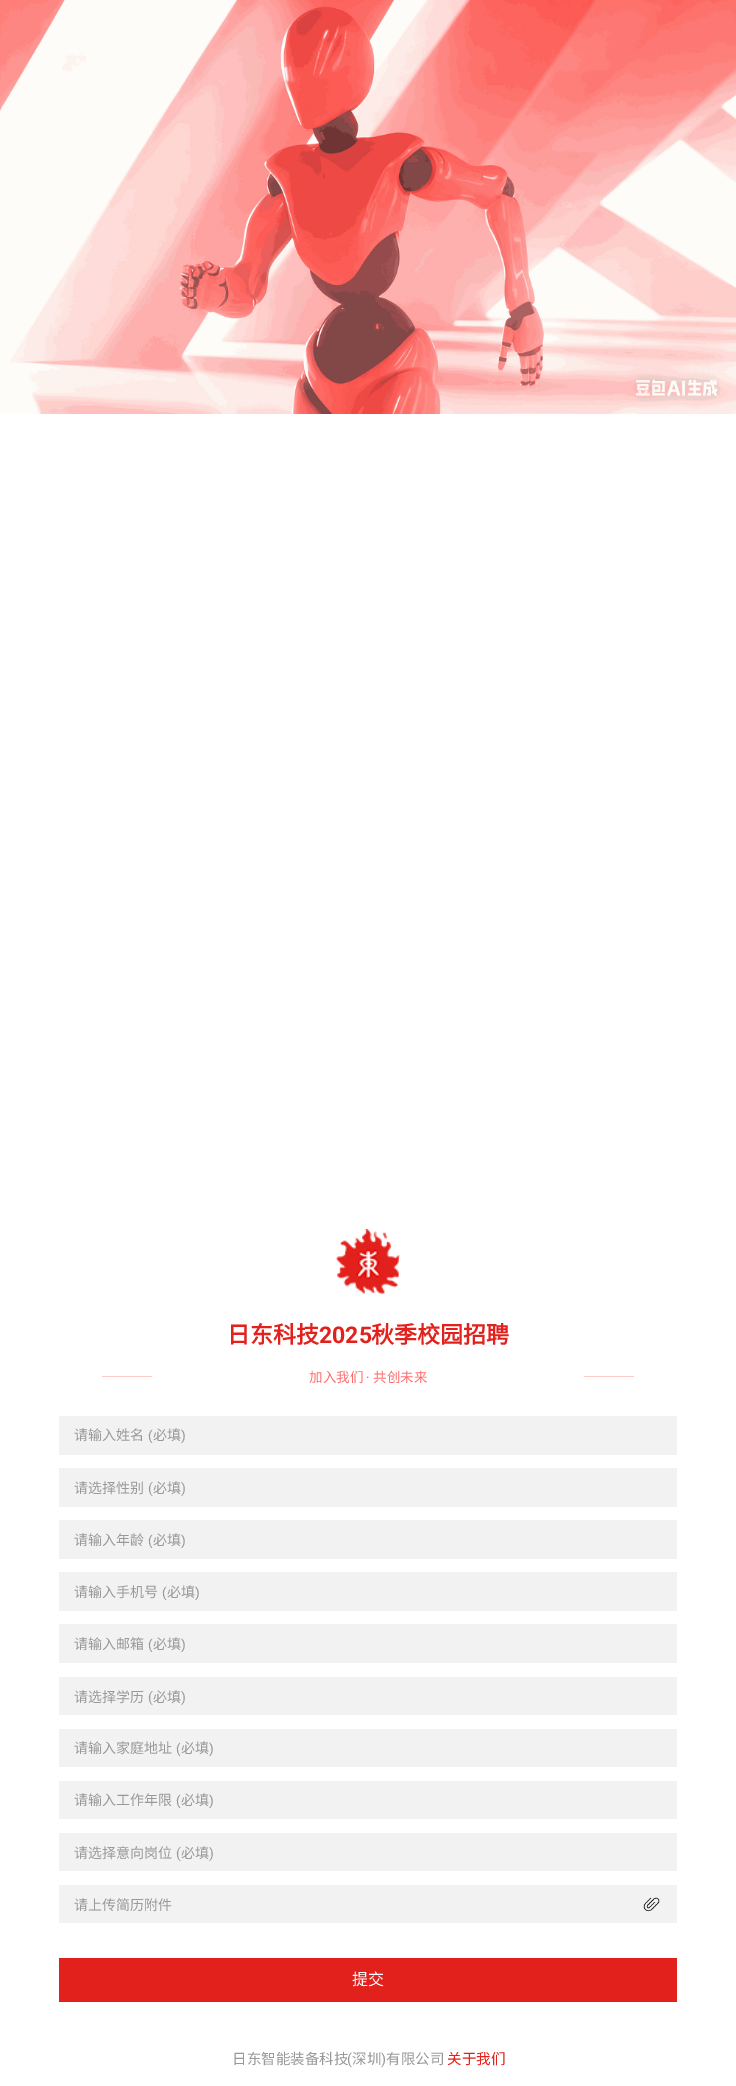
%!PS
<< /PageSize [736 2086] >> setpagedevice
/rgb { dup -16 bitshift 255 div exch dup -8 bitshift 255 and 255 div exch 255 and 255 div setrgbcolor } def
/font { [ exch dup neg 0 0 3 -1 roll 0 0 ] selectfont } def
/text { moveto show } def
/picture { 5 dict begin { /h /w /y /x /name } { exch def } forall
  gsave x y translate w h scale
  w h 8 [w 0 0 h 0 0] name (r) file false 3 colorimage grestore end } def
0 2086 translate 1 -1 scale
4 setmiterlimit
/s1 { /NotoSansCJKSC-Bold 23 font 16#E2211C rgb } def
/s2 { /Roboto-Bold 23 font 16#E2211C rgb } def
/s3 { /NotoSansCJKSC-Regular 13.5 font 16#FF6B6B rgb } def
/s4 { /Roboto-Regular 13.5 font 16#FF6B6B rgb } def
/s5 { /NotoSansCJKSC-Regular 14 font 16#999999 rgb } def
/s6 { /LiberationSans-Regular 14 font 16#999999 rgb } def
/s7 { /Roboto-Regular 14 font 16#999999 rgb } def
/s8 { /NotoSansCJKSC-Regular 16 font 16#FFFFFF rgb } def
/s9 { /NotoSansCJKSC-Regular 14.5 font 16#999999 rgb } def
/s10 { /Roboto-Regular 14.5 font 16#999999 rgb } def
/s11 { /NotoSansCJKSC-Regular 14.5 font 16#E2211C rgb } def
16#FFFFFF rgb
0 0 736 2086 rectfill
(pic1.raw) 0 0 736 414 picture
(pic2.raw) 336 1229 64 65 picture
s1
(日东科技) 227 1343 text
s2
(2025) 319 1343 text
s1
(秋季校园招聘) 371 1343 text
16#FFCACA rgb
102 1376 50 1 rectfill
s3
(加入我们) 309 1382 text
s4
(·) 366 1382 text
s3
(共创未来) 373 1382 text
16#FFCACA rgb
584 1376 50 1 rectfill
16#F2F2F2 rgb
59 1416 618 39 rectfill
s5
(请输入姓名) 74 1440 text
s6
(\() 148 1440 text
s5
(必填) 153 1440 text
s6
(\)) 181 1440 text
16#F2F2F2 rgb
59 1468 618 39 rectfill
s5
(请选择性别) 74 1493 text
s7
(\() 148 1493 text
s5
(必填) 153 1493 text
s7
(\)) 181 1493 text
16#F2F2F2 rgb
59 1520 618 39 rectfill
s5
(请输入年龄) 74 1545 text
s6
(\() 148 1545 text
s5
(必填) 153 1545 text
s6
(\)) 181 1545 text
16#F2F2F2 rgb
59 1572 618 39 rectfill
s5
(请输入手机号) 74 1597 text
s6
(\() 162 1597 text
s5
(必填) 167 1597 text
s6
(\)) 195 1597 text
16#F2F2F2 rgb
59 1624 618 39 rectfill
s5
(请输入邮箱) 74 1649 text
s6
(\() 148 1649 text
s5
(必填) 153 1649 text
s6
(\)) 181 1649 text
16#F2F2F2 rgb
59 1677 618 38 rectfill
s5
(请选择学历) 74 1702 text
s7
(\() 148 1702 text
s5
(必填) 153 1702 text
s7
(\)) 181 1702 text
16#F2F2F2 rgb
59 1729 618 38 rectfill
s5
(请输入家庭地址) 74 1753 text
s6
(\() 176 1753 text
s5
(必填) 181 1753 text
s6
(\)) 209 1753 text
16#F2F2F2 rgb
59 1781 618 38 rectfill
s5
(请输入工作年限) 74 1805 text
s6
(\() 176 1805 text
s5
(必填) 181 1805 text
s6
(\)) 209 1805 text
16#F2F2F2 rgb
59 1833 618 38 rectfill
s5
(请选择意向岗位) 74 1858 text
s7
(\() 176 1858 text
s5
(必填) 181 1858 text
s7
(\)) 209 1858 text
16#F2F2F2 rgb
59 1885 618 38 rectfill
s5
(请上传简历附件) 74 1910 text
(pic3.raw) 643 1897 17 15 picture
16#E2211C rgb
59 1958 618 44 rectfill
s8
(提交) 352 1985 text
s9
(日东智能装备科技) 232 2064 text
s10
(\() 347 2064 text
s9
(深圳) 352 2064 text
s10
(\)) 381 2064 text
s9
(有限公司) 386 2064 text
s11
(关于我们) 447 2064 text
showpage
